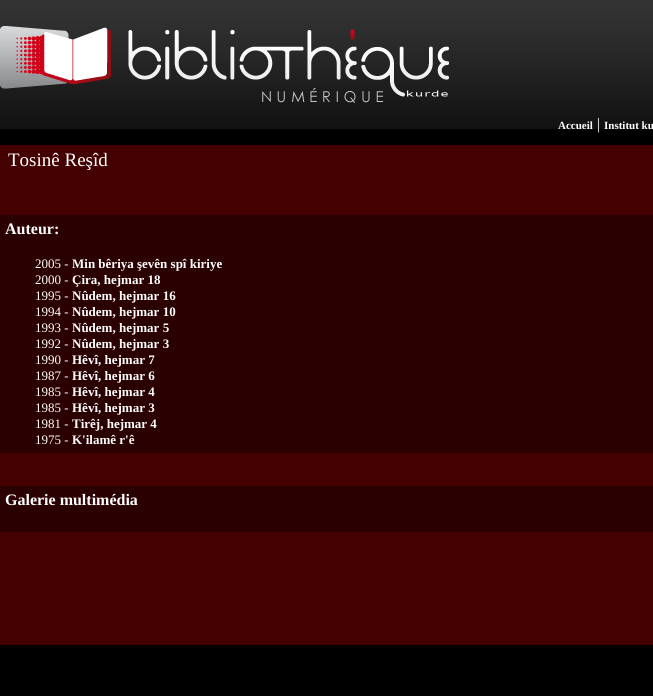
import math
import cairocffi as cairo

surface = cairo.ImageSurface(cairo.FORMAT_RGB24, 653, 696)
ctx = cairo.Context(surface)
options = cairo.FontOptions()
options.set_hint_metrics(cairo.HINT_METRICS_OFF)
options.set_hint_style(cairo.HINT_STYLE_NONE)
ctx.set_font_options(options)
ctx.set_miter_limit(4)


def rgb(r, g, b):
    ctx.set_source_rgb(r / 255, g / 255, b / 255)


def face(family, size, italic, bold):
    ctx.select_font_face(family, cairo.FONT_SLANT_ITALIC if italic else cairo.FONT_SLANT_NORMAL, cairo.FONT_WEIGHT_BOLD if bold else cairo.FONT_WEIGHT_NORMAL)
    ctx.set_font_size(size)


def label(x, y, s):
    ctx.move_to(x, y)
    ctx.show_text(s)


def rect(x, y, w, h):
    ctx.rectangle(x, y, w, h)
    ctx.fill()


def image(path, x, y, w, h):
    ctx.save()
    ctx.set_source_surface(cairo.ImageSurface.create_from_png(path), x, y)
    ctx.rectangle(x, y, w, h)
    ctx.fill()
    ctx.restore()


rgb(0, 0, 0)
ctx.paint()
image('image0.png', 0, 0, 653, 129)
image('image1.png', 0, 25, 449, 78)
face('Liberation Serif', 11, 0, 1)
rgb(255, 255, 255)
label(558, 129, 'Accueil')
face('Liberation Serif', 16, 0, 0)
label(597, 129, '|')
face('Liberation Serif', 11, 0, 1)
label(604, 129, 'Institut ku')
rgb(68, 0, 1)
rect(0, 145, 653, 500)
face('Liberation Serif', 19, 0, 0)
rgb(255, 255, 255)
label(8, 166, 'Tosinê Reşîd')
rgb(42, 0, 1)
rect(0, 215, 653, 238)
face('Liberation Serif', 16, 0, 1)
rgb(255, 255, 255)
label(5, 234, 'Auteur:')
face('Liberation Serif', 13, 0, 0)
label(35, 268, '2005 -')
face('Liberation Serif', 13, 0, 1)
label(72, 268, 'Min bêriya şevên spî kiriye')
face('Liberation Serif', 13, 0, 0)
label(35, 284, '2000 -')
face('Liberation Serif', 13, 0, 1)
label(72, 284, 'Çira, hejmar 18')
face('Liberation Serif', 13, 0, 0)
label(35, 300, '1995 -')
face('Liberation Serif', 13, 0, 1)
label(72, 300, 'Nûdem, hejmar 16')
face('Liberation Serif', 13, 0, 0)
label(35, 316, '1994 -')
face('Liberation Serif', 13, 0, 1)
label(72, 316, 'Nûdem, hejmar 10')
face('Liberation Serif', 13, 0, 0)
label(35, 332, '1993 -')
face('Liberation Serif', 13, 0, 1)
label(72, 332, 'Nûdem, hejmar 5')
face('Liberation Serif', 13, 0, 0)
label(35, 348, '1992 -')
face('Liberation Serif', 13, 0, 1)
label(72, 348, 'Nûdem, hejmar 3')
face('Liberation Serif', 13, 0, 0)
label(35, 364, '1990 -')
face('Liberation Serif', 13, 0, 1)
label(72, 364, 'Hêvî, hejmar 7')
face('Liberation Serif', 13, 0, 0)
label(35, 380, '1987 -')
face('Liberation Serif', 13, 0, 1)
label(72, 380, 'Hêvî, hejmar 6')
face('Liberation Serif', 13, 0, 0)
label(35, 396, '1985 -')
face('Liberation Serif', 13, 0, 1)
label(72, 396, 'Hêvî, hejmar 4')
face('Liberation Serif', 13, 0, 0)
label(35, 412, '1985 -')
face('Liberation Serif', 13, 0, 1)
label(72, 412, 'Hêvî, hejmar 3')
face('Liberation Serif', 13, 0, 0)
label(35, 428, '1981 -')
face('Liberation Serif', 13, 0, 1)
label(72, 428, 'Tirêj, hejmar 4')
face('Liberation Serif', 13, 0, 0)
label(35, 444, '1975 -')
face('Liberation Serif', 13, 0, 1)
label(72, 444, 'K\'ilamê r\'ê')
rgb(42, 0, 1)
rect(0, 486, 653, 46)
face('Liberation Serif', 16, 0, 1)
rgb(255, 255, 255)
label(5, 505, 'Galerie multimédia')
surface.write_to_png('render.png')
